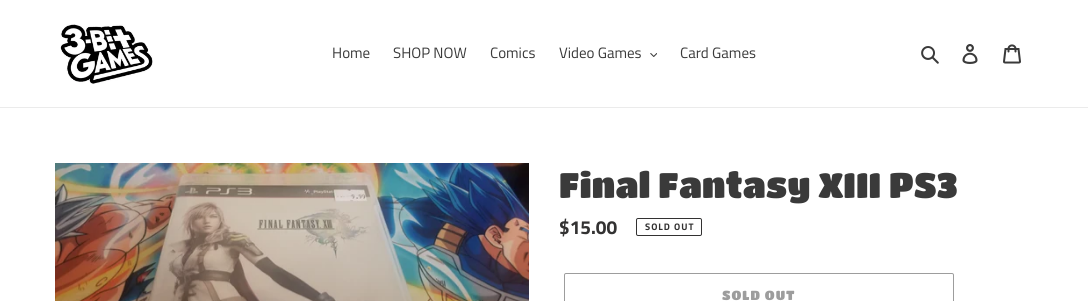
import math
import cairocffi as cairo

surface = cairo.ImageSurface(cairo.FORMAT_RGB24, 1088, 301)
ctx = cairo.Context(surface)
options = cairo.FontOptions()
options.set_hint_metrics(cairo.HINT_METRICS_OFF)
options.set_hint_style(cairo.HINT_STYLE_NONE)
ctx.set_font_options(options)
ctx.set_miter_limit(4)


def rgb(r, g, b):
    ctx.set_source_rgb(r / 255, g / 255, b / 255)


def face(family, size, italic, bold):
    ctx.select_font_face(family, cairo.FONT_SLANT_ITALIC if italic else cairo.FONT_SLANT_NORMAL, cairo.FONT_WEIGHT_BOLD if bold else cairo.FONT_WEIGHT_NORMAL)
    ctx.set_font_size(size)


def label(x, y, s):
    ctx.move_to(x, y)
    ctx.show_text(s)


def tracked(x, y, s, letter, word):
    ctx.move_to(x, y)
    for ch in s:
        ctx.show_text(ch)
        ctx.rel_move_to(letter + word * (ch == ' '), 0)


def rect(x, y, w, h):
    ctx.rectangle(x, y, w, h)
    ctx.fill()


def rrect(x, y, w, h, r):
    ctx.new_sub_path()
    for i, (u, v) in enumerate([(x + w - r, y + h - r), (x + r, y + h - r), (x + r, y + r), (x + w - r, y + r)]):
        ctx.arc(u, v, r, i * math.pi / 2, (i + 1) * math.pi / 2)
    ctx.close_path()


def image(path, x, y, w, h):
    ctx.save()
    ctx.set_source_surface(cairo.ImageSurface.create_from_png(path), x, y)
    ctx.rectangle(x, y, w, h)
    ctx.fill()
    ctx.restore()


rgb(255, 255, 255)
ctx.paint()
rgb(235, 235, 235)
rect(0, 107, 1088, 1)
image('image0.png', 60, 24, 93, 60)
face('Titillium Web', 15, 0, 0)
rgb(58, 58, 58)
label(332, 58, 'Home')
label(393, 58, 'SHOP NOW')
label(490, 58, 'Comics')
label(559, 58, 'Video Games')
image('image1.png', 650, 53, 7, 4)
label(680, 58, 'Card Games')
image('image2.png', 921, 46, 18, 18)
image('image3.png', 962, 44, 16, 20)
image('image4.png', 1003, 44, 18, 20)
image('image5.png', 55, 163, 474, 138)
face('Titan One', 35, 0, 0)
label(559, 198, 'Final Fantasy XIII PS3')
face('Titillium Web', 19, 0, 1)
rgb(51, 50, 50)
label(559, 234, '$15.00')
rrect(636.5, 218.5, 65, 17, 1.5)
ctx.set_line_width(1)
ctx.stroke()
face('Titillium Web', 9.5, 0, 1)
tracked(645, 230, 'SOLD OUT', 1, 0)
rrect(564.5, 273.5, 389, 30, 1.5)
rgb(157, 157, 157)
ctx.stroke()
face('Titan One', 13, 0, 0)
tracked(722, 300, 'SOLD OUT', 1, 0)
surface.write_to_png('render.png')
